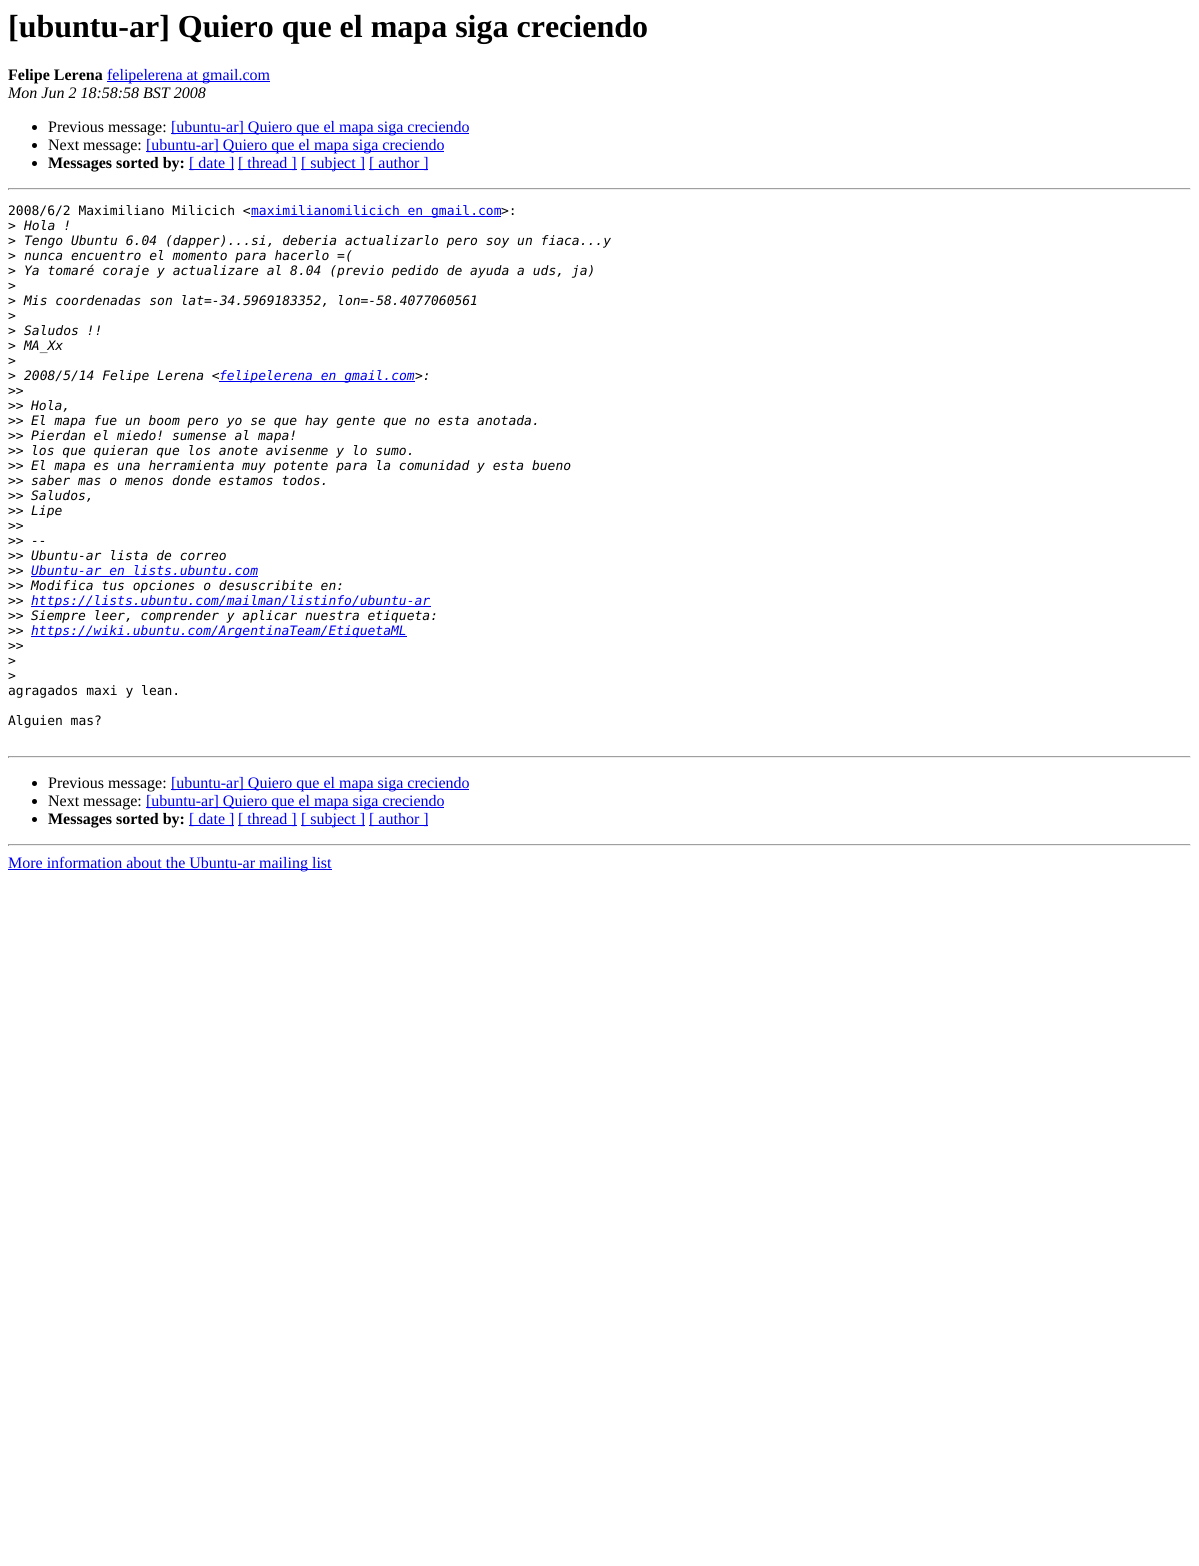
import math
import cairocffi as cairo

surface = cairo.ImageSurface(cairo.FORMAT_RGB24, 1199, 1566)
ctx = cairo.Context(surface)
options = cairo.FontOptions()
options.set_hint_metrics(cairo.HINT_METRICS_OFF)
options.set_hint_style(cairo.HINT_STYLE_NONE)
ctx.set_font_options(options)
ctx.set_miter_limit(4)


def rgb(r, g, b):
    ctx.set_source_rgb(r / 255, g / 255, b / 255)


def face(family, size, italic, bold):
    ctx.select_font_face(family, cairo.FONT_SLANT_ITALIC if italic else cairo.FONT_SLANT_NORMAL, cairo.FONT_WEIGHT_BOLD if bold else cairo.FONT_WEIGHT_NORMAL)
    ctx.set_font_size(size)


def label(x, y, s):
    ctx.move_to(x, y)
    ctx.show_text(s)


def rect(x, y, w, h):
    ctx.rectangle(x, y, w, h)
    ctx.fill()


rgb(255, 255, 255)
ctx.paint()
face('Liberation Serif', 32, 0, 1)
rgb(0, 0, 0)
label(8, 37, '[ubuntu-ar] Quiero que el mapa siga creciendo')
face('Liberation Serif', 16, 0, 1)
label(8, 80, 'Felipe Lerena')
rgb(0, 0, 238)
rect(107, 81, 163, 1)
face('Liberation Serif', 16, 0, 0)
label(107, 80, 'felipelerena at gmail.com')
face('Liberation Serif', 16, 1, 0)
rgb(0, 0, 0)
label(8, 98, 'Mon Jun 2 18:58:58 BST 2008')
ctx.new_path()
ctx.arc(34.5, 127.5, 2.5, 0, 2 * math.pi)
ctx.fill()
face('Liberation Serif', 16, 0, 0)
label(48, 132, 'Previous message:')
rgb(0, 0, 238)
rect(171, 133, 298, 1)
label(171, 132, '[ubuntu-ar] Quiero que el mapa siga creciendo')
rgb(0, 0, 0)
ctx.new_path()
ctx.arc(34.5, 145.5, 2.5, 0, 2 * math.pi)
ctx.fill()
label(48, 150, 'Next message:')
rgb(0, 0, 238)
rect(146, 151, 298, 1)
label(146, 150, '[ubuntu-ar] Quiero que el mapa siga creciendo')
rgb(0, 0, 0)
ctx.new_path()
ctx.arc(34.5, 163.5, 2.5, 0, 2 * math.pi)
ctx.fill()
face('Liberation Serif', 16, 0, 1)
label(48, 168, 'Messages sorted by:')
rgb(0, 0, 238)
rect(189, 169, 45, 1)
face('Liberation Serif', 16, 0, 0)
label(189, 168, '[ date ]')
rect(238, 169, 59, 1)
label(238, 168, '[ thread ]')
rect(301, 169, 64, 1)
label(301, 168, '[ subject ]')
rect(369, 169, 59, 1)
label(369, 168, '[ author ]')
rgb(159, 159, 159)
rect(8, 188, 1183, 1)
rgb(238, 238, 238)
rect(1190, 188, 1, 2)
rect(8, 189, 1183, 1)
rgb(159, 159, 159)
rect(8, 188, 1, 2)
face('DejaVu Sans Mono', 13, 0, 0)
rgb(0, 0, 0)
label(8, 215, '2008/6/2 Maximiliano Milicich <')
rgb(0, 0, 238)
rect(251, 216, 250, 1)
label(251, 215, 'maximilianomilicich en gmail.com')
rgb(0, 0, 0)
label(501, 215, '>:')
label(8, 230, '>')
face('DejaVu Sans Mono', 13, 1, 0)
label(24, 230, 'Hola !')
face('DejaVu Sans Mono', 13, 0, 0)
label(8, 245, '>')
face('DejaVu Sans Mono', 13, 1, 0)
label(24, 245, 'Tengo Ubuntu 6.04 (dapper)...si, deberia actualizarlo pero soy un fiaca...y')
face('DejaVu Sans Mono', 13, 0, 0)
label(8, 260, '>')
face('DejaVu Sans Mono', 13, 1, 0)
label(24, 260, 'nunca encuentro el momento para hacerlo =(')
face('DejaVu Sans Mono', 13, 0, 0)
label(8, 275, '>')
face('DejaVu Sans Mono', 13, 1, 0)
label(24, 275, 'Ya tomaré coraje y actualizare al 8.04 (previo pedido de ayuda a uds, ja)')
face('DejaVu Sans Mono', 13, 0, 0)
label(8, 290, '>')
label(8, 305, '>')
face('DejaVu Sans Mono', 13, 1, 0)
label(24, 305, 'Mis coordenadas son lat=-34.5969183352, lon=-58.4077060561')
face('DejaVu Sans Mono', 13, 0, 0)
label(8, 320, '>')
label(8, 335, '>')
face('DejaVu Sans Mono', 13, 1, 0)
label(24, 335, 'Saludos !!')
face('DejaVu Sans Mono', 13, 0, 0)
label(8, 350, '>')
face('DejaVu Sans Mono', 13, 1, 0)
label(24, 350, 'MA_Xx')
face('DejaVu Sans Mono', 13, 0, 0)
label(8, 365, '>')
label(8, 380, '>')
face('DejaVu Sans Mono', 13, 1, 0)
label(24, 380, '2008/5/14 Felipe Lerena <')
rgb(0, 0, 238)
rect(219, 381, 196, 1)
label(219, 380, 'felipelerena en gmail.com')
rgb(0, 0, 0)
label(415, 380, '>:')
face('DejaVu Sans Mono', 13, 0, 0)
label(8, 395, '>>')
label(8, 410, '>>')
face('DejaVu Sans Mono', 13, 1, 0)
label(31, 410, 'Hola,')
face('DejaVu Sans Mono', 13, 0, 0)
label(8, 425, '>>')
face('DejaVu Sans Mono', 13, 1, 0)
label(31, 425, 'El mapa fue un boom pero yo se que hay gente que no esta anotada.')
face('DejaVu Sans Mono', 13, 0, 0)
label(8, 440, '>>')
face('DejaVu Sans Mono', 13, 1, 0)
label(31, 440, 'Pierdan el miedo! sumense al mapa!')
face('DejaVu Sans Mono', 13, 0, 0)
label(8, 455, '>>')
face('DejaVu Sans Mono', 13, 1, 0)
label(31, 455, 'los que quieran que los anote avisenme y lo sumo.')
face('DejaVu Sans Mono', 13, 0, 0)
label(8, 470, '>>')
face('DejaVu Sans Mono', 13, 1, 0)
label(31, 470, 'El mapa es una herramienta muy potente para la comunidad y esta bueno')
face('DejaVu Sans Mono', 13, 0, 0)
label(8, 485, '>>')
face('DejaVu Sans Mono', 13, 1, 0)
label(31, 485, 'saber mas o menos donde estamos todos.')
face('DejaVu Sans Mono', 13, 0, 0)
label(8, 500, '>>')
face('DejaVu Sans Mono', 13, 1, 0)
label(31, 500, 'Saludos,')
face('DejaVu Sans Mono', 13, 0, 0)
label(8, 515, '>>')
face('DejaVu Sans Mono', 13, 1, 0)
label(31, 515, 'Lipe')
face('DejaVu Sans Mono', 13, 0, 0)
label(8, 530, '>>')
label(8, 545, '>>')
face('DejaVu Sans Mono', 13, 1, 0)
label(31, 545, '--')
face('DejaVu Sans Mono', 13, 0, 0)
label(8, 560, '>>')
face('DejaVu Sans Mono', 13, 1, 0)
label(31, 560, 'Ubuntu-ar lista de correo')
face('DejaVu Sans Mono', 13, 0, 0)
label(8, 575, '>>')
face('DejaVu Sans Mono', 13, 1, 0)
rgb(0, 0, 238)
label(31, 575, 'Ubuntu-ar en lists.ubuntu.com')
rect(31, 576, 227, 1)
face('DejaVu Sans Mono', 13, 0, 0)
rgb(0, 0, 0)
label(8, 590, '>>')
face('DejaVu Sans Mono', 13, 1, 0)
label(31, 590, 'Modifica tus opciones o desuscribite en:')
face('DejaVu Sans Mono', 13, 0, 0)
label(8, 605, '>>')
rgb(0, 0, 238)
rect(31, 606, 400, 1)
face('DejaVu Sans Mono', 13, 1, 0)
label(31, 605, 'https://lists.ubuntu.com/mailman/listinfo/ubuntu-ar')
face('DejaVu Sans Mono', 13, 0, 0)
rgb(0, 0, 0)
label(8, 620, '>>')
face('DejaVu Sans Mono', 13, 1, 0)
label(31, 620, 'Siempre leer, comprender y aplicar nuestra etiqueta:')
face('DejaVu Sans Mono', 13, 0, 0)
label(8, 635, '>>')
rgb(0, 0, 238)
rect(31, 636, 376, 1)
face('DejaVu Sans Mono', 13, 1, 0)
label(31, 635, 'https://wiki.ubuntu.com/ArgentinaTeam/EtiquetaML')
face('DejaVu Sans Mono', 13, 0, 0)
rgb(0, 0, 0)
label(8, 650, '>>')
label(8, 665, '>')
label(8, 680, '>')
label(8, 695, 'agragados maxi y lean.')
label(8, 725, 'Alguien mas?')
rgb(159, 159, 159)
rect(8, 756, 1183, 1)
rgb(238, 238, 238)
rect(1190, 756, 1, 2)
rect(8, 757, 1183, 1)
rgb(159, 159, 159)
rect(8, 756, 1, 2)
rgb(0, 0, 0)
ctx.new_path()
ctx.arc(34.5, 783.5, 2.5, 0, 2 * math.pi)
ctx.fill()
face('Liberation Serif', 16, 0, 0)
label(48, 788, 'Previous message:')
rgb(0, 0, 238)
rect(171, 789, 298, 1)
label(171, 788, '[ubuntu-ar] Quiero que el mapa siga creciendo')
rgb(0, 0, 0)
ctx.new_path()
ctx.arc(34.5, 801.5, 2.5, 0, 2 * math.pi)
ctx.fill()
label(48, 806, 'Next message:')
rgb(0, 0, 238)
rect(146, 807, 298, 1)
label(146, 806, '[ubuntu-ar] Quiero que el mapa siga creciendo')
rgb(0, 0, 0)
ctx.new_path()
ctx.arc(34.5, 819.5, 2.5, 0, 2 * math.pi)
ctx.fill()
face('Liberation Serif', 16, 0, 1)
label(48, 824, 'Messages sorted by:')
rgb(0, 0, 238)
rect(189, 825, 45, 1)
face('Liberation Serif', 16, 0, 0)
label(189, 824, '[ date ]')
rect(238, 825, 59, 1)
label(238, 824, '[ thread ]')
rect(301, 825, 64, 1)
label(301, 824, '[ subject ]')
rect(369, 825, 59, 1)
label(369, 824, '[ author ]')
rgb(159, 159, 159)
rect(8, 844, 1183, 1)
rgb(238, 238, 238)
rect(1190, 844, 1, 2)
rect(8, 845, 1183, 1)
rgb(159, 159, 159)
rect(8, 844, 1, 2)
rgb(0, 0, 238)
rect(8, 869, 324, 1)
label(8, 868, 'More information about the Ubuntu-ar mailing list')
surface.write_to_png('render.png')
